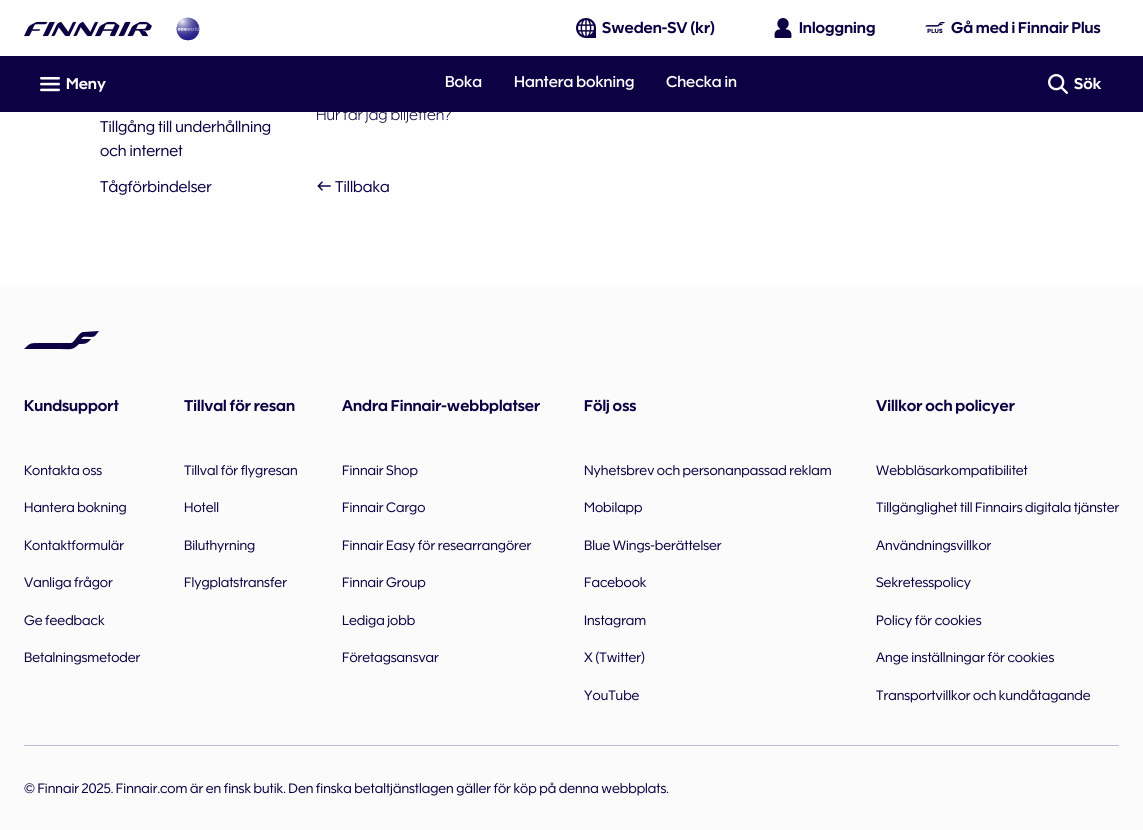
import math
import cairocffi as cairo

surface = cairo.ImageSurface(cairo.FORMAT_RGB24, 1143, 830)
ctx = cairo.Context(surface)
options = cairo.FontOptions()
options.set_hint_metrics(cairo.HINT_METRICS_OFF)
options.set_hint_style(cairo.HINT_STYLE_NONE)
ctx.set_font_options(options)
ctx.set_miter_limit(4)


def rgb(r, g, b):
    ctx.set_source_rgb(r / 255, g / 255, b / 255)


def face(family, size, italic, bold):
    ctx.select_font_face(family, cairo.FONT_SLANT_ITALIC if italic else cairo.FONT_SLANT_NORMAL, cairo.FONT_WEIGHT_BOLD if bold else cairo.FONT_WEIGHT_NORMAL)
    ctx.set_font_size(size)


def label(x, y, s):
    ctx.move_to(x, y)
    ctx.show_text(s)


def rect(x, y, w, h):
    ctx.rectangle(x, y, w, h)
    ctx.fill()


def image(path, x, y, w, h):
    ctx.save()
    ctx.set_source_surface(cairo.ImageSurface.create_from_png(path), x, y)
    ctx.rectangle(x, y, w, h)
    ctx.fill()
    ctx.restore()


rgb(255, 255, 255)
ctx.paint()
image('image0.png', 24, 21, 128, 16)
image('image1.png', 176, 17, 24, 24)
image('image2.png', 576, 18, 20, 20)
face('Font', 16, 0, 1)
rgb(12, 2, 67)
label(602, 33, 'Sweden-SV (kr)')
image('image3.png', 774, 18, 18, 20)
label(799, 33, 'Inloggning')
image('image4.png', 925, 22, 20, 11)
label(951, 33, 'Gå med i Finnair Plus')
rect(0, 56, 1143, 56)
image('image5.png', 40, 77, 20, 15)
rgb(255, 255, 255)
label(66, 89, 'Meny')
face('Font Medium', 16, 0, 0)
label(445, 87, 'Boka')
label(514, 87, 'Hantera bokning')
label(666, 87, 'Checka in')
image('image6.png', 1048, 74, 20, 20)
face('Font', 16, 0, 1)
label(1074, 89, 'Sök')
face('Font', 16, 0, 0)
rgb(12, 2, 67)
label(100, 132, 'Tillgång till underhållning')
label(100, 156, 'och internet')
label(100, 192, 'Tågförbindelser')
face('Font Light', 16, 0, 0)
label(316, 120, 'Hur får jag biljetten?')
image('image7.png', 317, 181, 14, 10)
face('Font', 16, 0, 0)
label(335, 192, 'Tillbaka')
rgb(251, 251, 251)
rect(0, 287, 1143, 543)
rgb(187, 188, 212)
rect(24, 745, 1095, 1)
rgb(12, 2, 67)
ctx.new_path()
ctx.move_to(39, 349)
ctx.line_to(24, 349)
ctx.curve_to(30, 343, 30, 343, 40, 343)
ctx.line_to(71, 343)
ctx.curve_to(75, 342, 78, 333, 83, 332)
ctx.line_to(99, 331)
ctx.line_to(95, 336)
ctx.curve_to(92, 338, 86, 336, 83, 337)
ctx.line_to(81, 339)
ctx.line_to(91, 339)
ctx.curve_to(87, 344, 85, 344, 79, 344)
ctx.curve_to(72, 351, 70, 349, 60, 349)
ctx.line_to(39, 349)
ctx.fill()
face('Font', 16, 0, 1)
label(24, 411, 'Kundsupport')
face('Font', 14, 0, 0)
label(24, 475, 'Kontakta oss')
label(24, 512, 'Hantera bokning')
label(24, 550, 'Kontaktformulär')
label(24, 587, 'Vanliga frågor')
label(24, 625, 'Ge feedback')
label(24, 662, 'Betalningsmetoder')
face('Font', 16, 0, 1)
label(184, 411, 'Tillval för resan')
face('Font', 14, 0, 0)
label(184, 475, 'Tillval för flygresan')
label(184, 512, 'Hotell')
label(184, 550, 'Biluthyrning')
label(184, 587, 'Flygplatstransfer')
face('Font', 16, 0, 1)
label(342, 411, 'Andra Finnair-webbplatser')
face('Font', 14, 0, 0)
label(342, 475, 'Finnair Shop')
label(342, 512, 'Finnair Cargo')
label(342, 550, 'Finnair Easy för researrangörer')
label(342, 587, 'Finnair Group')
label(342, 625, 'Lediga jobb')
label(342, 662, 'Företagsansvar')
face('Font', 16, 0, 1)
label(584, 411, 'Följ oss')
face('Font', 14, 0, 0)
label(584, 475, 'Nyhetsbrev och personanpassad reklam')
label(584, 512, 'Mobilapp')
label(584, 550, 'Blue Wings-berättelser')
label(584, 587, 'Facebook')
label(584, 625, 'Instagram')
label(584, 662, 'X (Twitter)')
label(584, 700, 'YouTube')
face('Font', 16, 0, 1)
label(876, 411, 'Villkor och policyer')
face('Font', 14, 0, 0)
label(876, 475, 'Webbläsarkompatibilitet')
label(876, 512, 'Tillgänglighet till Finnairs digitala tjänster')
label(876, 550, 'Användningsvillkor')
label(876, 587, 'Sekretesspolicy')
label(876, 625, 'Policy för cookies')
label(876, 662, 'Ange inställningar för cookies')
label(876, 700, 'Transportvillkor och kundåtagande')
label(24, 793, '© Finnair 2025. Finnair.com är en finsk butik. Den finska betaltjänstlagen gäller för köp på denna webbplats.')
surface.write_to_png('render.png')
